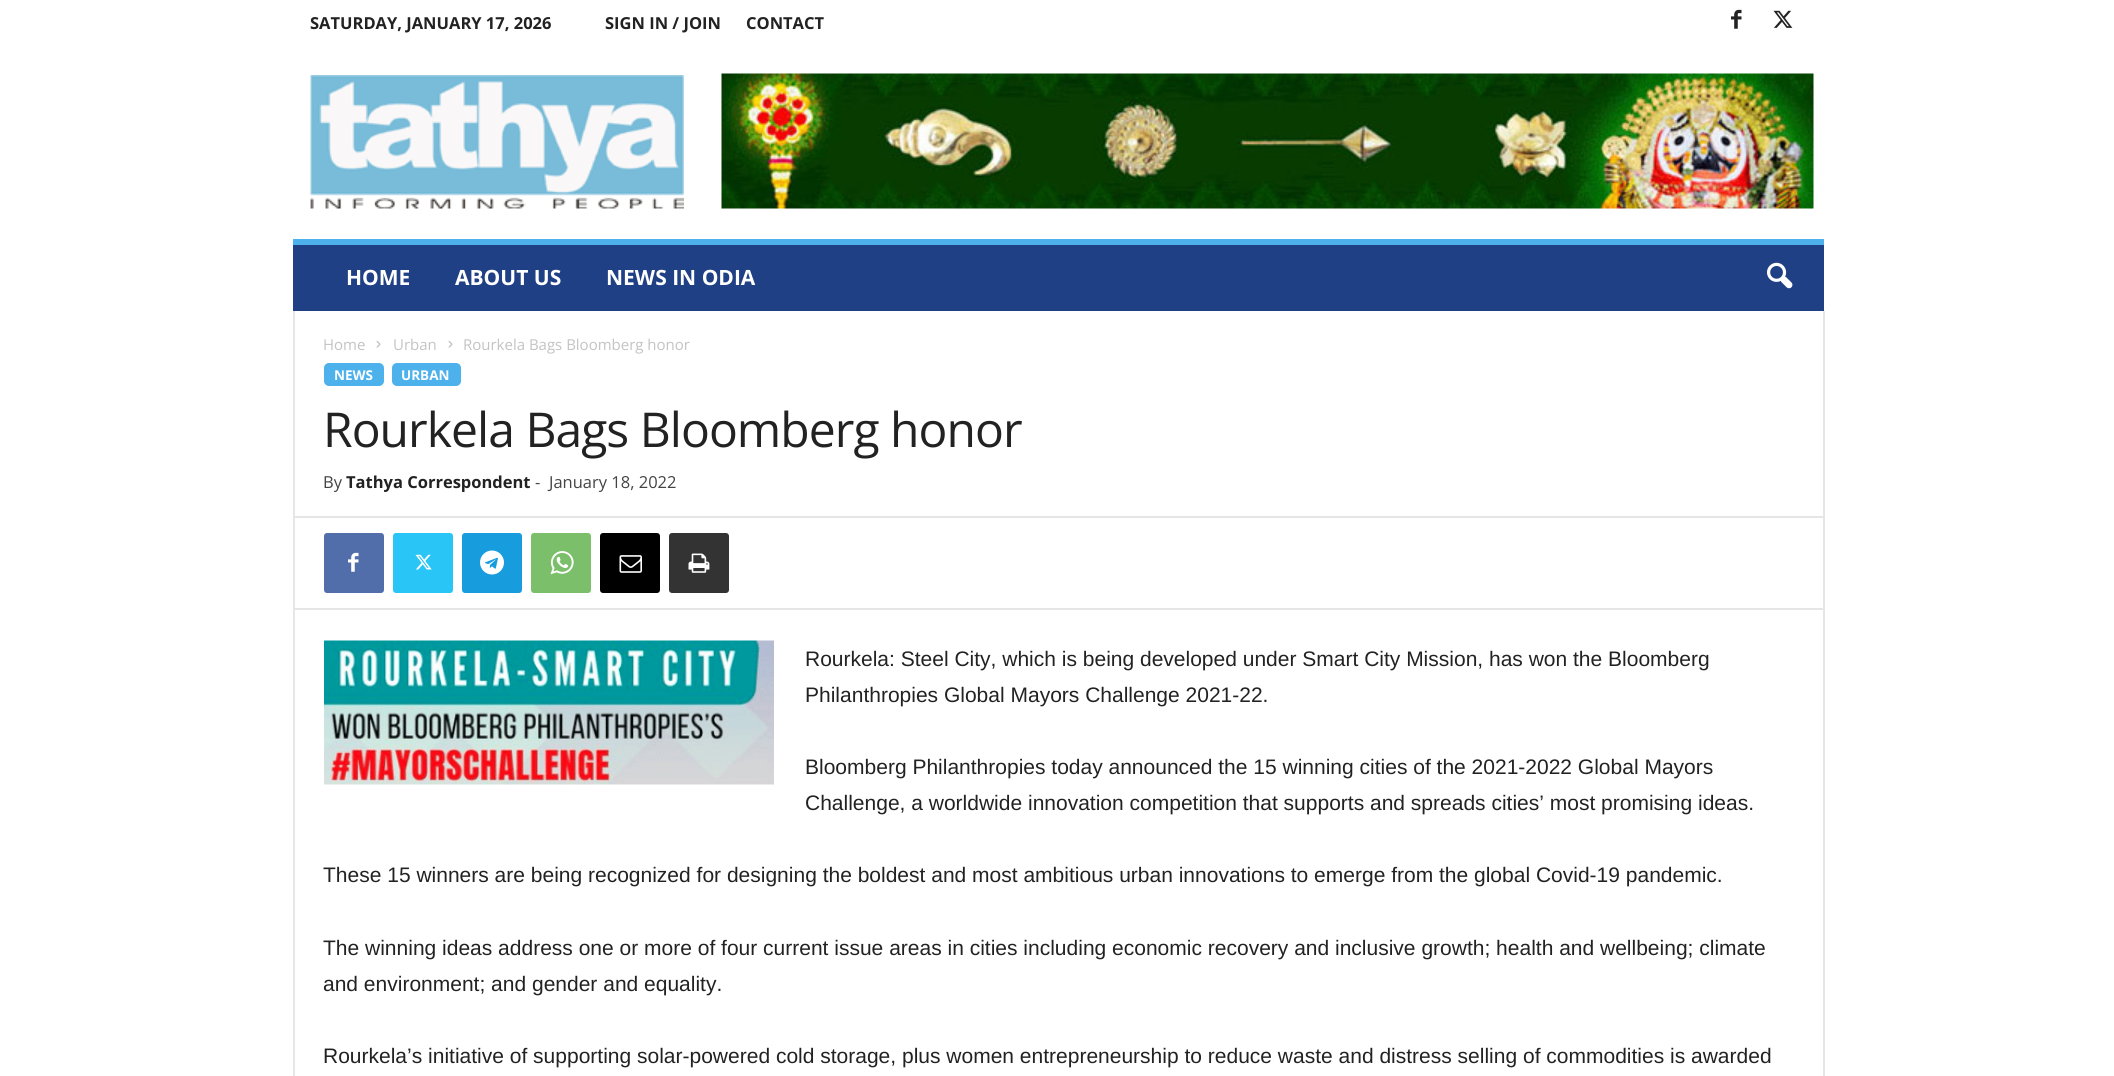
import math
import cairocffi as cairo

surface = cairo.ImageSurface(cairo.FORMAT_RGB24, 2114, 1076)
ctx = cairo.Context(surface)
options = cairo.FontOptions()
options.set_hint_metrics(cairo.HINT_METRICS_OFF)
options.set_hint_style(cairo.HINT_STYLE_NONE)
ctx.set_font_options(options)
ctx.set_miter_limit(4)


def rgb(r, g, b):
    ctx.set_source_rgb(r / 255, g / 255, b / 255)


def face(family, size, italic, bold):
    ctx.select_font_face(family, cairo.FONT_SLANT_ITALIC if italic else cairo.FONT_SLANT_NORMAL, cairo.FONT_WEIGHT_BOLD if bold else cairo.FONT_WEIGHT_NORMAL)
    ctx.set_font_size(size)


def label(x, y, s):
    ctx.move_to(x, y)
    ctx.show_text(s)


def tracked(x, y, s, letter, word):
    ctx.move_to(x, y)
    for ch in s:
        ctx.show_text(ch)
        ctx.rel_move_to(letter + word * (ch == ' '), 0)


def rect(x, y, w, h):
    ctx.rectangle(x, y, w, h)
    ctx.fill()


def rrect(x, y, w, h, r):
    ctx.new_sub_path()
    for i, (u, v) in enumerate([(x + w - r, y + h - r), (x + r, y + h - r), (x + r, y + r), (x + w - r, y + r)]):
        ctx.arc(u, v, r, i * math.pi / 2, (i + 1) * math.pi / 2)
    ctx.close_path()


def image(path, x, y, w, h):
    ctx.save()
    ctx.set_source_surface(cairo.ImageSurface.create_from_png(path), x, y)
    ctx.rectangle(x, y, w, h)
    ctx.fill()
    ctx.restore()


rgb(255, 255, 255)
ctx.paint()
face('Open Sans', 16.5, 0, 1)
rgb(34, 34, 34)
label(310, 29, 'SATURDAY, JANUARY 17, 2026')
label(605, 29, 'SIGN IN / JOIN')
label(746, 29, 'CONTACT')
image('image0.png', 1731, 9, 11, 20)
image('image1.png', 1773, 10, 20, 18)
image('image2.png', 310, 75, 374, 134)
image('image3.png', 721, 73, 1093, 136)
rgb(31, 64, 132)
rect(293, 245, 1531, 66)
rgb(77, 178, 236)
rect(293, 239, 1531, 6)
face('Open Sans', 21, 0, 1)
rgb(255, 255, 255)
label(346, 285, 'HOME')
label(455, 285, 'ABOUT US')
label(606, 285, 'NEWS IN ODIA')
image('image4.png', 1767, 262, 26, 27)
rgb(230, 230, 230)
rect(293, 311, 2, 765)
face('Open Sans', 15, 0, 0)
rgb(195, 195, 195)
label(323, 350, 'Home')
image('image5.png', 376, 340, 5, 8)
label(393, 350, 'Urban')
image('image5.png', 448, 340, 5, 8)
label(463, 350, 'Rourkela Bags Bloomberg honor')
rgb(77, 178, 236)
rrect(324, 363, 60, 23, 5)
ctx.fill()
face('Open Sans', 13.5, 0, 1)
rgb(255, 255, 255)
label(334, 380, 'NEWS')
rgb(77, 178, 236)
rrect(392, 363, 69, 23, 5)
ctx.fill()
rgb(255, 255, 255)
label(401, 380, 'URBAN')
face('Open Sans', 48, 0, 0)
rgb(34, 34, 34)
tracked(323, 447, 'Rourkela Bags Bloomberg honor', -0.95, 0)
face('Open Sans', 16.5, 0, 0)
rgb(68, 68, 68)
label(323, 488, 'By')
face('Open Sans', 16.5, 0, 1)
rgb(34, 34, 34)
label(346, 488, 'Tathya Correspondent')
face('Open Sans', 16.5, 0, 0)
rgb(68, 68, 68)
label(535, 488, '-')
label(549, 488, 'January 18, 2022')
rgb(230, 230, 230)
rect(294, 516, 1529, 2)
rgb(81, 110, 171)
rrect(324, 533, 60, 60, 3)
ctx.fill()
image('image6.png', 348, 552, 11, 20)
rgb(41, 197, 246)
rrect(393, 533, 60, 60, 3)
ctx.fill()
image('image7.png', 415, 554, 17, 16)
rgb(23, 156, 222)
rrect(462, 533, 60, 60, 3)
ctx.fill()
image('image8.png', 480, 550, 24, 25)
rgb(123, 191, 106)
rrect(531, 533, 60, 60, 3)
ctx.fill()
image('image9.png', 550, 551, 24, 24)
rgb(0, 0, 0)
rrect(600, 533, 60, 60, 3)
ctx.fill()
image('image10.png', 619, 555, 23, 18)
rgb(51, 51, 51)
rrect(669, 533, 60, 60, 3)
ctx.fill()
image('image11.png', 688, 553, 22, 20)
rgb(230, 230, 230)
rect(294, 608, 1529, 2)
image('image12.png', 324, 640, 450, 145)
face('Liberation Sans', 21, 0, 0)
rgb(34, 34, 34)
label(805, 666, 'Rourkela: Steel City, which is being developed under Smart City Mission, has won the Bloomberg')
label(805, 702, 'Philanthropies Global Mayors Challenge 2021-22.')
label(805, 774, 'Bloomberg Philanthropies today announced the 15 winning cities of the 2021-2022 Global Mayors')
label(805, 810, 'Challenge, a worldwide innovation competition that supports and spreads cities’ most promising ideas.')
label(323, 882, 'These 15 winners are being recognized for designing the boldest and most ambitious urban innovations to emerge from the global Covid-19 pandemic.')
label(323, 955, 'The winning ideas address one or more of four current issue areas in cities including economic recovery and inclusive growth; health and wellbeing; climate')
label(323, 991, 'and environment; and gender and equality.')
label(323, 1063, 'Rourkela’s initiative of supporting solar-powered cold storage, plus women entrepreneurship to reduce waste and distress selling of commodities is awarded')
rgb(230, 230, 230)
rect(1823, 311, 2, 765)
surface.write_to_png('render.png')
